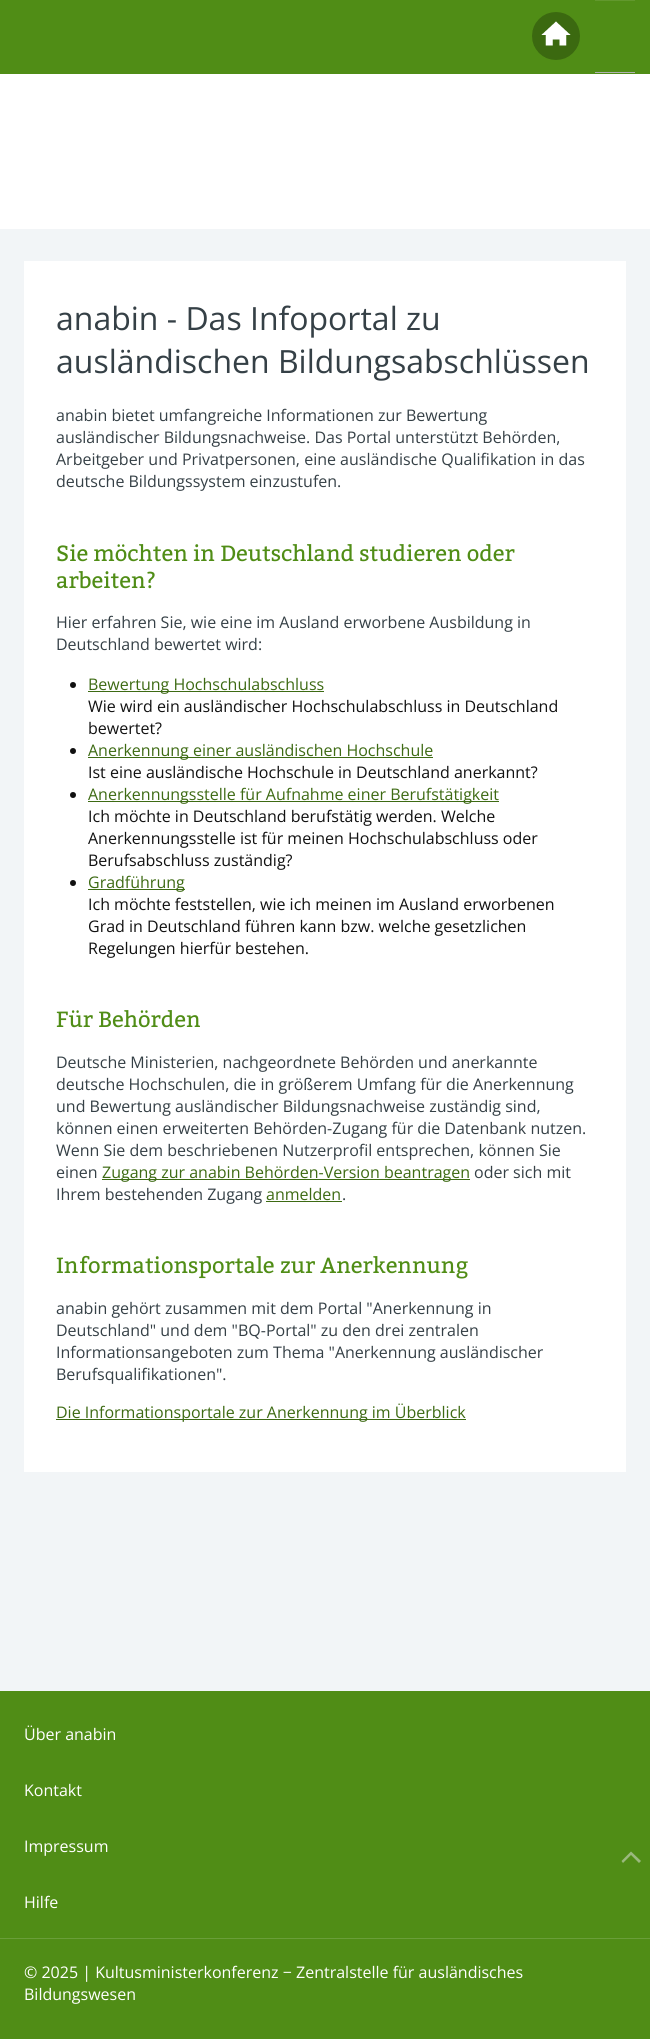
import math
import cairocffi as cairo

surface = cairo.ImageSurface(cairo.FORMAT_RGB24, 650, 2039)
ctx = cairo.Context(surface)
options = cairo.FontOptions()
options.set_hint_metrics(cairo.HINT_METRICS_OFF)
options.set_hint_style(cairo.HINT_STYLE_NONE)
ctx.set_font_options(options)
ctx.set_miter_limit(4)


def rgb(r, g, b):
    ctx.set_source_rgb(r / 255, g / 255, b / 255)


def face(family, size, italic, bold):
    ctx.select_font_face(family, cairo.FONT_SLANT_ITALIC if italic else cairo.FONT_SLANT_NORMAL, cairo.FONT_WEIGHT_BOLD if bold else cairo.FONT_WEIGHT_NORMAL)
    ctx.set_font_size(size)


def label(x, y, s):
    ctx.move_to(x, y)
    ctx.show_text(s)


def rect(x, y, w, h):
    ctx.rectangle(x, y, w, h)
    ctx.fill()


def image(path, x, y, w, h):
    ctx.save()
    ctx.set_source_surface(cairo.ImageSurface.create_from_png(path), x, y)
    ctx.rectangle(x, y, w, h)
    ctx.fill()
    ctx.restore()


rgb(242, 245, 247)
ctx.paint()
rgb(80, 141, 22)
rect(0, 0, 650, 74)
image('image0.png', 532, 12, 48, 48)
rgb(176, 177, 178)
rect(595, 72, 40, 1)
rgb(98, 152, 45)
rect(595, 0, 40, 1)
rgb(255, 255, 255)
rect(0, 74, 650, 155)
rect(24, 261, 602, 1211)
face('Open Sans', 32, 0, 0)
rgb(53, 64, 70)
label(56, 330, 'anabin - Das Infoportal zu')
label(56, 373, 'ausländischen Bildungsabschlüssen')
face('Open Sans', 16, 0, 0)
label(56, 421, 'anabin bietet umfangreiche Informationen zur Bewertung')
label(56, 443, 'ausländischer Bildungsnachweise. Das Portal unterstützt Behörden,')
label(56, 465, 'Arbeitgeber und Privatpersonen, eine ausländische Qualifikation in das')
label(56, 487, 'deutsche Bildungssystem einzustufen.')
face('Bitter', 22, 0, 0)
rgb(80, 141, 22)
label(56, 561, 'Sie möchten in Deutschland studieren oder')
label(56, 588, 'arbeiten?')
face('Open Sans', 16, 0, 0)
rgb(53, 64, 70)
label(56, 628, 'Hier erfahren Sie, wie eine im Ausland erworbene Ausbildung in')
label(56, 650, 'Deutschland bewertet wird:')
rgb(17, 17, 17)
ctx.new_path()
ctx.arc(73, 685, 3, 0, 2 * math.pi)
ctx.fill()
rgb(61, 106, 19)
rect(88, 691, 236, 1)
label(88, 690, 'Bewertung Hochschulabschluss')
rgb(17, 17, 17)
label(88, 712, 'Wie wird ein ausländischer Hochschulabschluss in Deutschland')
label(88, 734, 'bewertet?')
ctx.new_path()
ctx.arc(73, 751, 3, 0, 2 * math.pi)
ctx.fill()
rgb(61, 106, 19)
rect(88, 757, 345, 1)
label(88, 756, 'Anerkennung einer ausländischen Hochschule')
rgb(17, 17, 17)
label(88, 778, 'Ist eine ausländische Hochschule in Deutschland anerkannt?')
ctx.new_path()
ctx.arc(73, 795, 3, 0, 2 * math.pi)
ctx.fill()
rgb(61, 106, 19)
rect(88, 801, 411, 1)
label(88, 800, 'Anerkennungsstelle für Aufnahme einer Berufstätigkeit')
rgb(17, 17, 17)
label(88, 822, 'Ich möchte in Deutschland berufstätig werden. Welche')
label(88, 844, 'Anerkennungsstelle ist für meinen Hochschulabschluss oder')
label(88, 866, 'Berufsabschluss zuständig?')
ctx.new_path()
ctx.arc(73, 883, 3, 0, 2 * math.pi)
ctx.fill()
rgb(61, 106, 19)
rect(88, 889, 97, 1)
label(88, 888, 'Gradführung')
rgb(17, 17, 17)
label(88, 910, 'Ich möchte feststellen, wie ich meinen im Ausland erworbenen')
label(88, 932, 'Grad in Deutschland führen kann bzw. welche gesetzlichen')
label(88, 954, 'Regelungen hierfür bestehen.')
face('Bitter', 22, 0, 0)
rgb(80, 141, 22)
label(56, 1027, 'Für Behörden')
face('Open Sans', 16, 0, 0)
rgb(53, 64, 70)
label(56, 1068, 'Deutsche Ministerien, nachgeordnete Behörden und anerkannte')
label(56, 1090, 'deutsche Hochschulen, die in größerem Umfang für die Anerkennung')
label(56, 1112, 'und Bewertung ausländischer Bildungsnachweise zuständig sind,')
label(56, 1134, 'können einen erweiterten Behörden-Zugang für die Datenbank nutzen.')
label(56, 1156, 'Wenn Sie dem beschriebenen Nutzerprofil entsprechen, können Sie')
label(56, 1178, 'einen')
rgb(61, 106, 19)
rect(102, 1179, 368, 1)
label(102, 1178, 'Zugang zur anabin Behörden-Version beantragen')
rgb(53, 64, 70)
label(474, 1178, 'oder sich mit')
label(56, 1200, 'Ihrem bestehenden Zugang')
rgb(61, 106, 19)
label(266, 1200, 'anmelden')
rect(266, 1201, 76, 1)
rgb(53, 64, 70)
label(342, 1200, '.')
face('Bitter', 22, 0, 0)
rgb(80, 141, 22)
label(56, 1273, 'Informationsportale zur Anerkennung')
face('Open Sans', 16, 0, 0)
rgb(53, 64, 70)
label(56, 1314, 'anabin gehört zusammen mit dem Portal "Anerkennung in')
label(56, 1336, 'Deutschland" und dem "BQ-Portal" zu den drei zentralen')
label(56, 1358, 'Informationsangeboten zum Thema "Anerkennung ausländischer')
label(56, 1380, 'Berufsqualifikationen".')
rgb(61, 106, 19)
rect(56, 1419, 410, 1)
label(56, 1418, 'Die Informationsportale zur Anerkennung im Überblick')
rgb(80, 141, 22)
rect(0, 1691, 650, 348)
rgb(255, 255, 255)
label(24, 1740, 'Über anabin')
label(24, 1796, 'Kontakt')
label(24, 1852, 'Impressum')
label(24, 1908, 'Hilfe')
rgb(106, 158, 57)
rect(0, 1938, 650, 1)
rgb(255, 255, 255)
label(24, 1978, '© 2025 | Kultusministerkonferenz − Zentralstelle für ausländisches')
label(24, 2000, 'Bildungswesen')
rgb(155, 185, 126)
ctx.new_path()
ctx.move_to(631, 1851.5)
ctx.line_to(621.5, 1861)
ctx.line_to(623, 1863)
ctx.line_to(631, 1855)
ctx.line_to(639, 1863)
ctx.line_to(641, 1861)
ctx.close_path()
ctx.fill()
surface.write_to_png('render.png')
